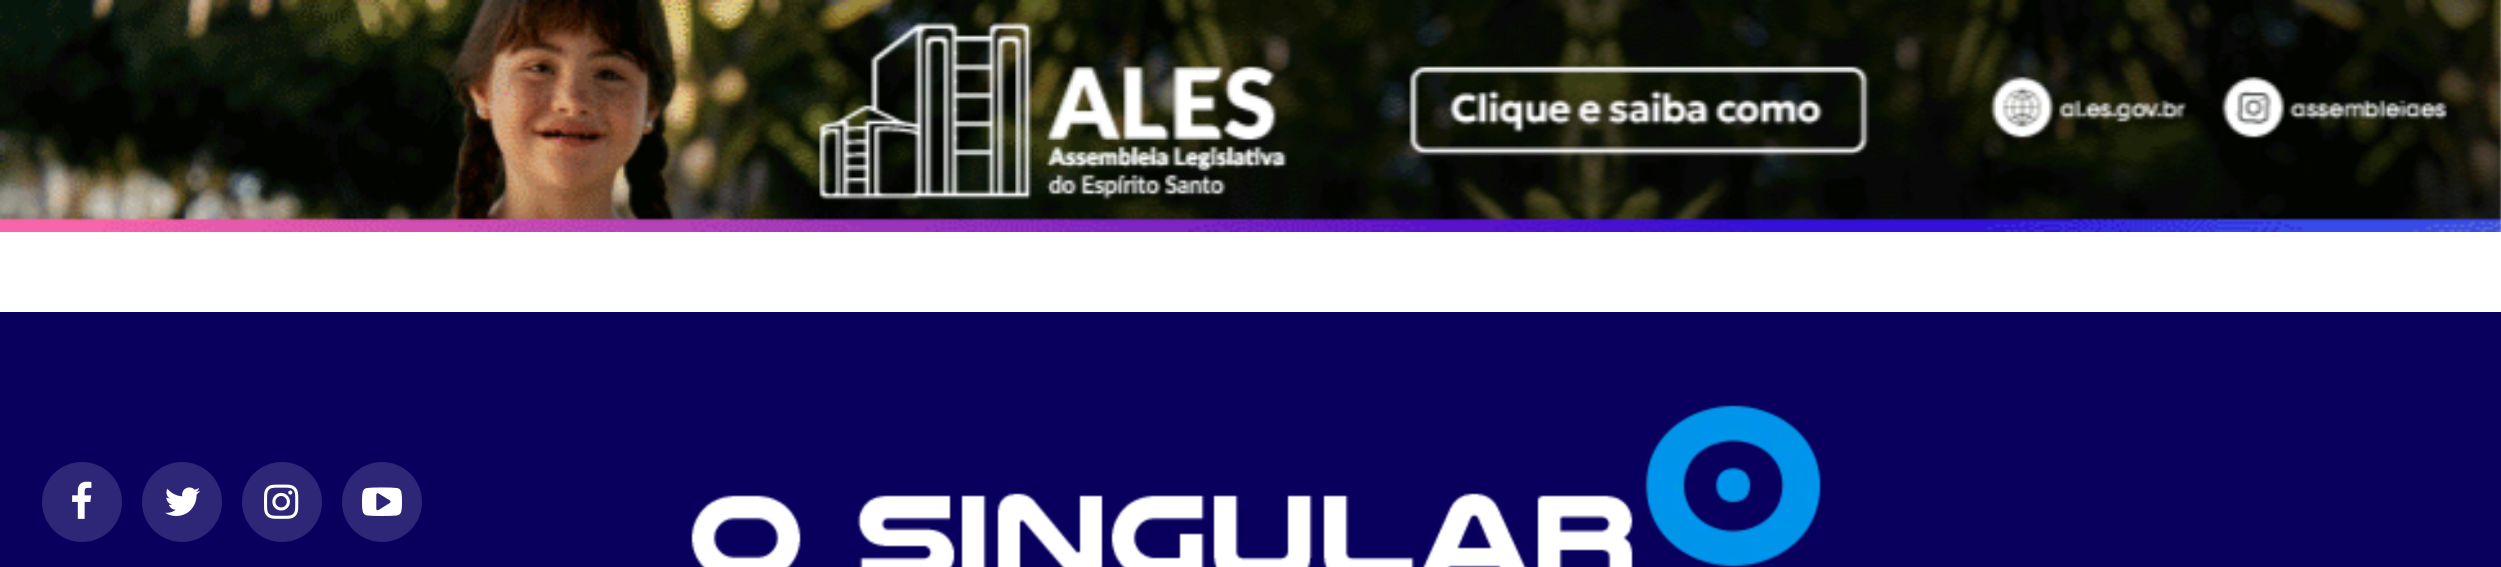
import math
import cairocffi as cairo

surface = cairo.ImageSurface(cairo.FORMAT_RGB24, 2501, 567)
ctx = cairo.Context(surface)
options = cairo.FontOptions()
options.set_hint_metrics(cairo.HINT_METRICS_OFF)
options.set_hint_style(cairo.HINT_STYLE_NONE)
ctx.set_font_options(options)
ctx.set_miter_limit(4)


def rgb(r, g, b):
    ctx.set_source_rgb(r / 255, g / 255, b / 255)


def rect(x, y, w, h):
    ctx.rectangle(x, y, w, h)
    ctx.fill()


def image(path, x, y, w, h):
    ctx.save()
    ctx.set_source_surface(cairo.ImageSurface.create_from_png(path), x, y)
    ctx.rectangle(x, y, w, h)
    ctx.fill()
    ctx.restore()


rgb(255, 255, 255)
ctx.paint()
image('image0.png', 0, 0, 2501, 232)
rgb(9, 0, 94)
rect(0, 312, 2501, 255)
rgb(46, 38, 118)
ctx.arc(82, 502, 40, 0, 2 * math.pi)
ctx.fill()
image('image1.png', 72, 481, 20, 38)
ctx.arc(182, 502, 40, 0, 2 * math.pi)
ctx.fill()
image('image2.png', 165, 487, 35, 29)
ctx.arc(282, 502, 40, 0, 2 * math.pi)
ctx.fill()
image('image3.png', 264, 484, 35, 35)
ctx.arc(382, 502, 40, 0, 2 * math.pi)
ctx.fill()
image('image4.png', 362, 487, 40, 29)
image('image5.png', 691, 405, 1130, 162)
surface.write_to_png('render.png')
